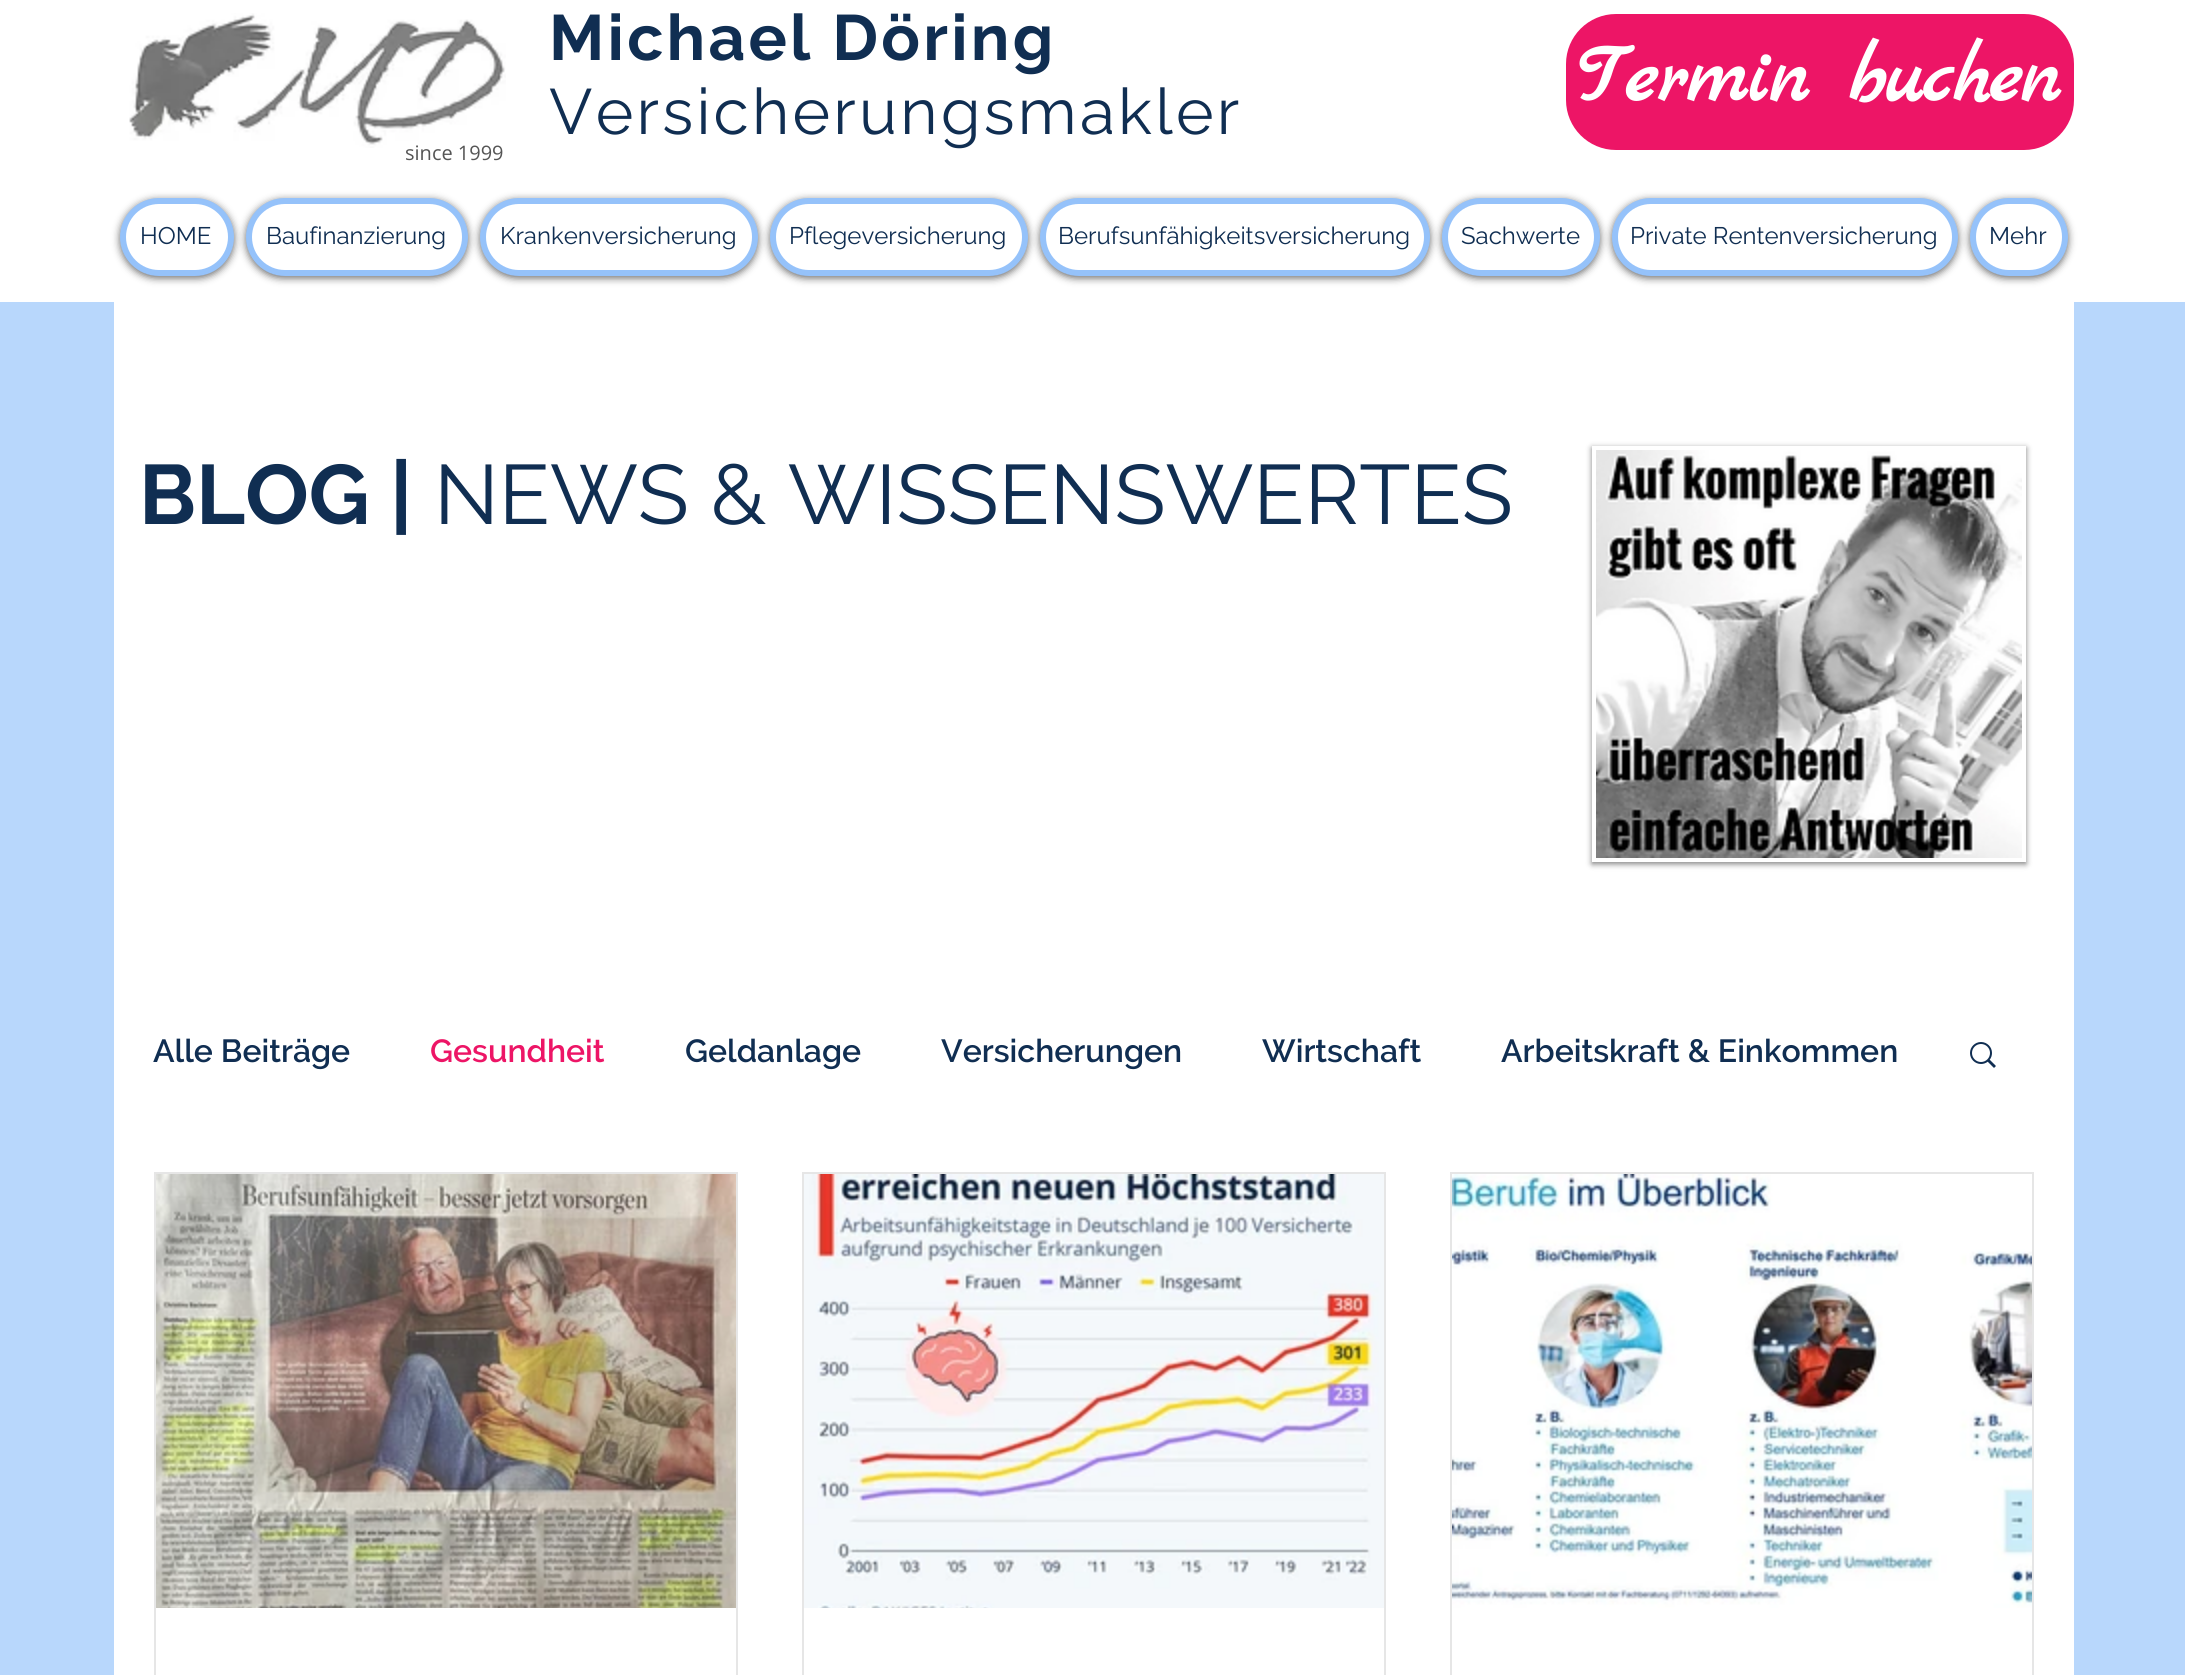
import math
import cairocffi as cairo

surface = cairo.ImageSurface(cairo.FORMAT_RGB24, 2185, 1675)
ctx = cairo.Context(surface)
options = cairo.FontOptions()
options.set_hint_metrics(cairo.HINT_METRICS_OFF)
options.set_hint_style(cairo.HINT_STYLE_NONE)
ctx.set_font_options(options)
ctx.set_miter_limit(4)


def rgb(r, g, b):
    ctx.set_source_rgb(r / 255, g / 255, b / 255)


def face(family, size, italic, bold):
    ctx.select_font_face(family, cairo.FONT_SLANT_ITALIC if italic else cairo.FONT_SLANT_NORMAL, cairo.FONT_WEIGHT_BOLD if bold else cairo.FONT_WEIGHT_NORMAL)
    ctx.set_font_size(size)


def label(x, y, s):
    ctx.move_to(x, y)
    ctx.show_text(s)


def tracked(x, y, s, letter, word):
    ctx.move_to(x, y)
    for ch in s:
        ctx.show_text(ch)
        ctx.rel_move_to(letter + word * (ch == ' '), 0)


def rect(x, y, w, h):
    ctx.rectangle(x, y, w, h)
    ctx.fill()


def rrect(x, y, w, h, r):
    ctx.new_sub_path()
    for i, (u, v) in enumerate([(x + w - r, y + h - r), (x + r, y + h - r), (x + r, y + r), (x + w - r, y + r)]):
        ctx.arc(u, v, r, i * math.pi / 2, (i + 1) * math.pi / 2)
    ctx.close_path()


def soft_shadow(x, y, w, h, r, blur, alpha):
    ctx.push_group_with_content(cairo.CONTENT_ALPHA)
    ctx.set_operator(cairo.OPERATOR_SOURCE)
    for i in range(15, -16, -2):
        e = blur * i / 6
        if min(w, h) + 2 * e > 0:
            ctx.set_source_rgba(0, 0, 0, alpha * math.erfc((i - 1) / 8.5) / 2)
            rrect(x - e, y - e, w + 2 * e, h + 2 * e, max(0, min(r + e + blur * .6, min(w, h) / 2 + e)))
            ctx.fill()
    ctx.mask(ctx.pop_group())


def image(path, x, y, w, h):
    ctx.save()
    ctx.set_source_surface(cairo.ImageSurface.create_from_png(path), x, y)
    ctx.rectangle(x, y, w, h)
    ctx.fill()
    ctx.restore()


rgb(184, 215, 252)
ctx.paint()
rgb(255, 255, 255)
rect(0, 0, 2185, 302)
image('image0.png', 129, 13, 377, 135)
face('Raleway', 64, 0, 1)
rgb(16, 46, 82)
tracked(549, 60, 'Michael Döring', 3.25, 0)
face('Raleway', 64, 0, 0)
tracked(549, 134, 'Versicherungsmakler', 3.25, 0)
rgb(237, 21, 102)
rrect(1566, 14, 508, 136, 50)
ctx.fill()
face('Marck Script', 84, 0, 1)
rgb(255, 255, 255)
label(1577, 101, 'Termin buchen')
face('Open Sans', 20, 0, 0)
rgb(85, 85, 85)
label(405, 160, 'since 1999')
rgb(0, 0, 0)
soft_shadow(120, 200, 114, 78, 39, 4, 0.6)
rgb(255, 255, 255)
rrect(123, 201, 108, 72, 36)
ctx.fill_preserve()
rgb(149, 194, 250)
ctx.set_line_width(6)
ctx.stroke()
face('Raleway', 24, 0, 0)
rgb(16, 46, 82)
label(140, 244, 'HOME')
rgb(0, 0, 0)
soft_shadow(246, 200, 222, 78, 39, 4, 0.6)
rgb(255, 255, 255)
rrect(249, 201, 216, 72, 36)
ctx.fill_preserve()
rgb(149, 194, 250)
ctx.stroke()
rgb(16, 46, 82)
label(266, 244, 'Baufinanzierung')
rgb(0, 0, 0)
soft_shadow(480, 200, 278, 78, 39, 4, 0.6)
rgb(255, 255, 255)
rrect(483, 201, 272, 72, 36)
ctx.fill_preserve()
rgb(149, 194, 250)
ctx.stroke()
rgb(16, 46, 82)
label(500, 244, 'Krankenversicherung')
rgb(0, 0, 0)
soft_shadow(770, 200, 258, 78, 39, 4, 0.6)
rgb(255, 255, 255)
rrect(773, 201, 252, 72, 36)
ctx.fill_preserve()
rgb(149, 194, 250)
ctx.stroke()
rgb(16, 46, 82)
label(789, 244, 'Pflegeversicherung')
rgb(0, 0, 0)
soft_shadow(1040, 200, 390, 78, 39, 4, 0.6)
rgb(255, 255, 255)
rrect(1043, 201, 384, 72, 36)
ctx.fill_preserve()
rgb(149, 194, 250)
ctx.stroke()
rgb(16, 46, 82)
label(1058, 244, 'Berufsunfähigkeitsversicherung')
rgb(0, 0, 0)
soft_shadow(1442, 200, 158, 78, 39, 4, 0.6)
rgb(255, 255, 255)
rrect(1445, 201, 152, 72, 36)
ctx.fill_preserve()
rgb(149, 194, 250)
ctx.stroke()
rgb(16, 46, 82)
label(1461, 244, 'Sachwerte')
rgb(0, 0, 0)
soft_shadow(1612, 200, 346, 78, 39, 4, 0.6)
rgb(255, 255, 255)
rrect(1615, 201, 340, 72, 36)
ctx.fill_preserve()
rgb(149, 194, 250)
ctx.stroke()
rgb(16, 46, 82)
label(1630, 244, 'Private Rentenversicherung')
rgb(0, 0, 0)
soft_shadow(1970, 200, 98, 78, 39, 4, 0.6)
rgb(255, 255, 255)
rrect(1973, 201, 92, 72, 36)
ctx.fill_preserve()
rgb(149, 194, 250)
ctx.stroke()
rgb(16, 46, 82)
label(1989, 244, 'Mehr')
rgb(255, 255, 255)
rect(114, 302, 1960, 1373)
face('Raleway', 84, 0, 1)
rgb(16, 46, 82)
label(139, 524, 'BLOG |')
face('Raleway', 84, 0, 0)
label(434, 524, 'NEWS & WISSENSWERTES')
ctx.save()
ctx.set_fill_rule(cairo.FILL_RULE_EVEN_ODD)
ctx.new_path()
ctx.move_to(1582, 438)
ctx.line_to(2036, 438)
ctx.line_to(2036, 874)
ctx.line_to(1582, 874)
ctx.close_path()
ctx.move_to(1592, 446)
ctx.line_to(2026, 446)
ctx.line_to(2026, 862)
ctx.line_to(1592, 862)
ctx.close_path()
ctx.clip()
rgb(0, 0, 0)
soft_shadow(1592, 448, 434, 416, 0, 3, 0.5)
ctx.restore()
image('image1.png', 1596, 450, 426, 408)
face('Raleway SemiBold', 32, 0, 0)
label(153, 1062, 'Alle Beiträge')
rgb(237, 21, 102)
label(430, 1062, 'Gesundheit')
rgb(16, 46, 82)
label(685, 1062, 'Geldanlage')
label(941, 1062, 'Versicherungen')
label(1262, 1062, 'Wirtschaft')
label(1501, 1062, 'Arbeitskraft & Einkommen')
image('image2.png', 1970, 1042, 26, 26)
ctx.rectangle(155, 1173, 582, 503)
rgb(230, 230, 230)
ctx.set_line_width(2)
ctx.stroke()
image('image3.png', 156, 1174, 580, 434)
ctx.rectangle(803, 1173, 582, 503)
ctx.stroke()
image('image4.png', 804, 1174, 580, 434)
ctx.rectangle(1451, 1173, 582, 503)
ctx.stroke()
image('image5.png', 1452, 1174, 580, 434)
surface.write_to_png('render.png')
